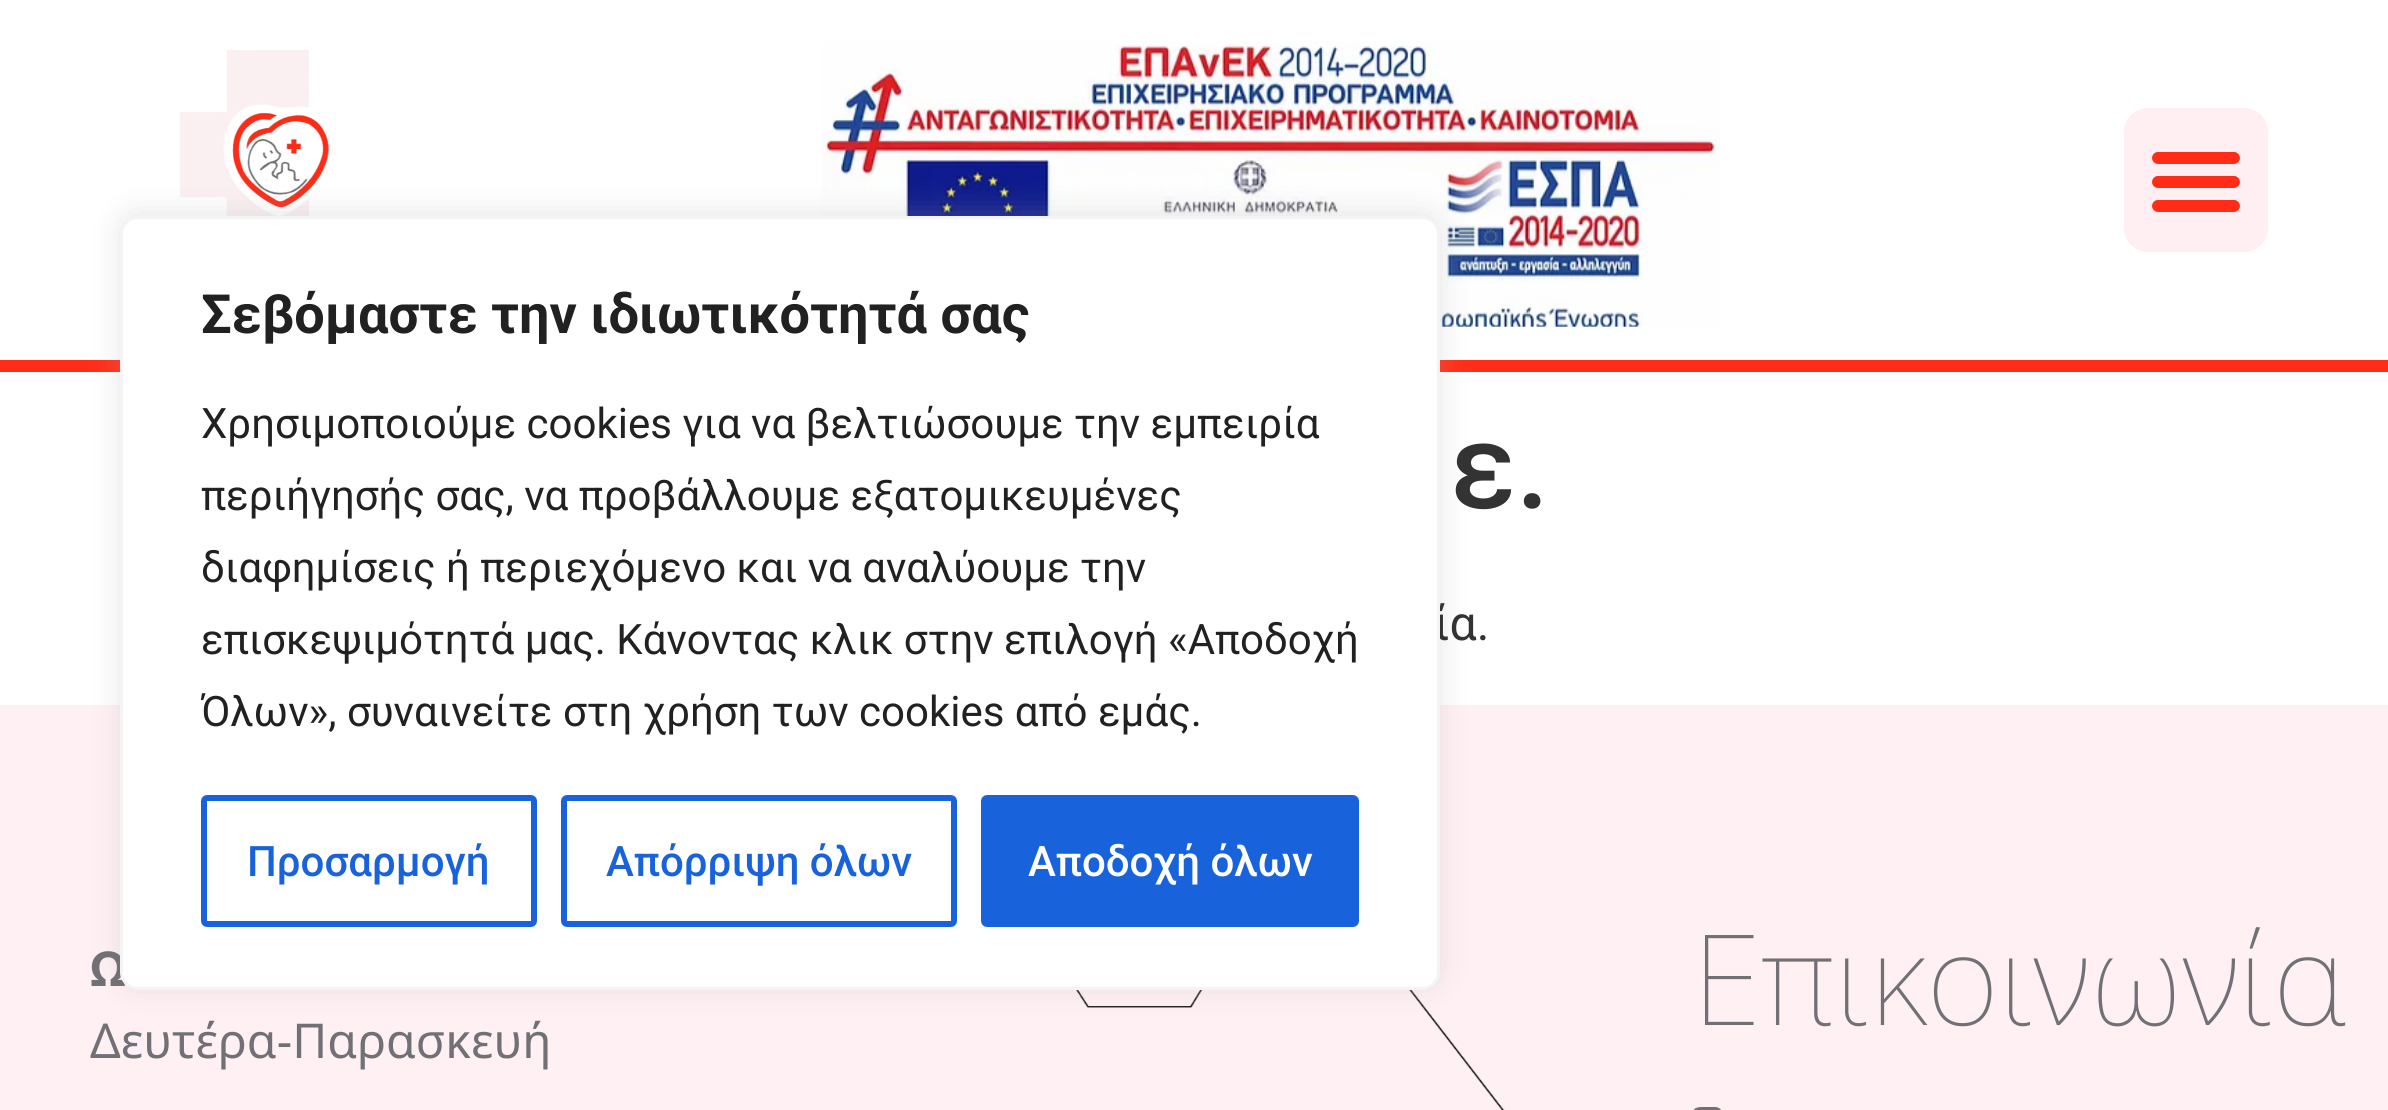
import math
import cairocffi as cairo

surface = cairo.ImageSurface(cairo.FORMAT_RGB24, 2388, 1110)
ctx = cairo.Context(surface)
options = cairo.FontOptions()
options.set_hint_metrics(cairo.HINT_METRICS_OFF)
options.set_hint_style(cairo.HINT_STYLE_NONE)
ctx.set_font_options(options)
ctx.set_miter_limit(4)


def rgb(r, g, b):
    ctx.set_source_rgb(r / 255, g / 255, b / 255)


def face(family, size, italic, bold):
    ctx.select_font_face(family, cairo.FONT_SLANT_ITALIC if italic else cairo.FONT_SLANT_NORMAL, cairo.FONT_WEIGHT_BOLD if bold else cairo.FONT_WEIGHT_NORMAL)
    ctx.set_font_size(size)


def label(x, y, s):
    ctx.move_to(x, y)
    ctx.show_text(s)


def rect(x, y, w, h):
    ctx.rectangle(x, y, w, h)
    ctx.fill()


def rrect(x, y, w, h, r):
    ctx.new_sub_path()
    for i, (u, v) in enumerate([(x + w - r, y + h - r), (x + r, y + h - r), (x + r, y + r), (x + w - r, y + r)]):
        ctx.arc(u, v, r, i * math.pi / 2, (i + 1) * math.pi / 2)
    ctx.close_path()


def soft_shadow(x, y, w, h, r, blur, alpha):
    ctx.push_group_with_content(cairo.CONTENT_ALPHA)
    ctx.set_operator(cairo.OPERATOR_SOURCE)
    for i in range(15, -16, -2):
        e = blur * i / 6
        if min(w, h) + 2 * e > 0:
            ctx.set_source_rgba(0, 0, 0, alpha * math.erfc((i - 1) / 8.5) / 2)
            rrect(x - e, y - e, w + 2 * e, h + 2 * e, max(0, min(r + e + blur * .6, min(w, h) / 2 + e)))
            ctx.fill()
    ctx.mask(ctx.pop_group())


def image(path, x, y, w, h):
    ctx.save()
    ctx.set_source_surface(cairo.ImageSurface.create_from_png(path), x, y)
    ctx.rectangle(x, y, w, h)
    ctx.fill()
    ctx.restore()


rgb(255, 255, 255)
ctx.paint()
rgb(255, 45, 23)
rect(0, 360, 2388, 12)
image('image0.png', 179, 50, 151, 166)
image('image1.png', 822, 41, 898, 286)
rgb(255, 239, 242)
rrect(2124, 108, 144, 144, 24)
ctx.fill()
image('image2.png', 2152, 152, 88, 60)
rgb(255, 240, 243)
rect(0, 705, 2388, 405)
image('image3.png', 1076, 990, 429, 120)
rgb(172, 171, 171)
soft_shadow(120, 213, 1320, 774, 18, 15, 0.3)
face('Roboto', 48, 0, 0)
rgb(51, 51, 51)
label(1434, 640, 'ία.')
face('Noto Sans', 48, 0, 1)
rgb(112, 112, 117)
label(90, 986, 'Ω')
rgb(255, 255, 255)
rrect(121.5, 217.5, 1317, 771, 16.5)
ctx.fill_preserve()
rgb(244, 244, 244)
ctx.set_line_width(3)
ctx.stroke()
face('Roboto', 54, 0, 1)
rgb(33, 33, 33)
label(201, 333, 'Σεβόμαστε την ιδιωτικότητά σας')
face('Roboto', 42, 0, 0)
label(201, 438, 'Χρησιμοποιούμε cookies για να βελτιώσουμε την εμπειρία')
label(201, 510, 'περιήγησής σας, να προβάλλουμε εξατομικευμένες')
label(201, 582, 'διαφημίσεις ή περιεχόμενο και να αναλύουμε την')
label(201, 654, 'επισκεψιμότητά μας. Κάνοντας κλικ στην επιλογή «Αποδοχή')
label(201, 726, 'Όλων», συναινείτε στη χρήση των cookies από εμάς.')
rrect(204, 798, 330, 126, 3)
rgb(24, 99, 220)
ctx.set_line_width(6)
ctx.stroke()
face('Roboto Medium', 42, 0, 0)
label(247, 876, 'Προσαρμογή')
rrect(564, 798, 390, 126, 3)
ctx.stroke()
label(606, 876, 'Απόρριψη όλων')
rrect(984, 798, 372, 126, 3)
ctx.fill_preserve()
ctx.stroke()
rgb(255, 255, 255)
label(1028, 876, 'Αποδοχή όλων')
face('Roboto Medium', 120, 0, 0)
rgb(51, 51, 51)
label(1450, 508, 'ε.')
face('Noto Sans', 48, 0, 0)
rgb(112, 112, 117)
label(90, 1058, 'Δευτέρα-Παρασκευή')
face('Noto Sans Thin', 126, 0, 0)
label(1692, 1025, 'Επικοινωνία')
ctx.save()
ctx.rectangle(1692, 1107, 84, 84)
ctx.clip()
ctx.new_path()
ctx.move_to(1694.5, 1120.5)
ctx.curve_to(1694.5, 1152.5, 1717.5, 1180.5, 1749, 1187)
ctx.line_to(1765.5, 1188.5)
ctx.curve_to(1771, 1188, 1773.5, 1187.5, 1773.5, 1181.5)
ctx.line_to(1773.5, 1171.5)
ctx.curve_to(1773.5, 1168.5, 1774, 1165, 1771, 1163.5)
ctx.line_to(1757, 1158.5)
ctx.curve_to(1747, 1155, 1748, 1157.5, 1742.5, 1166.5)
ctx.curve_to(1731, 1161, 1722, 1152, 1716.5, 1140.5)
ctx.curve_to(1729, 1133, 1728, 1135, 1723, 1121)
ctx.curve_to(1718, 1108, 1720, 1109.5, 1705.5, 1109.5)
ctx.curve_to(1695, 1109.5, 1694.5, 1110, 1694.5, 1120.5)
ctx.close_path()
ctx.set_line_width(5.2)
ctx.set_line_cap(cairo.LINE_CAP_ROUND)
ctx.set_line_join(cairo.LINE_JOIN_ROUND)
ctx.stroke()
ctx.restore()
surface.write_to_png('render.png')
